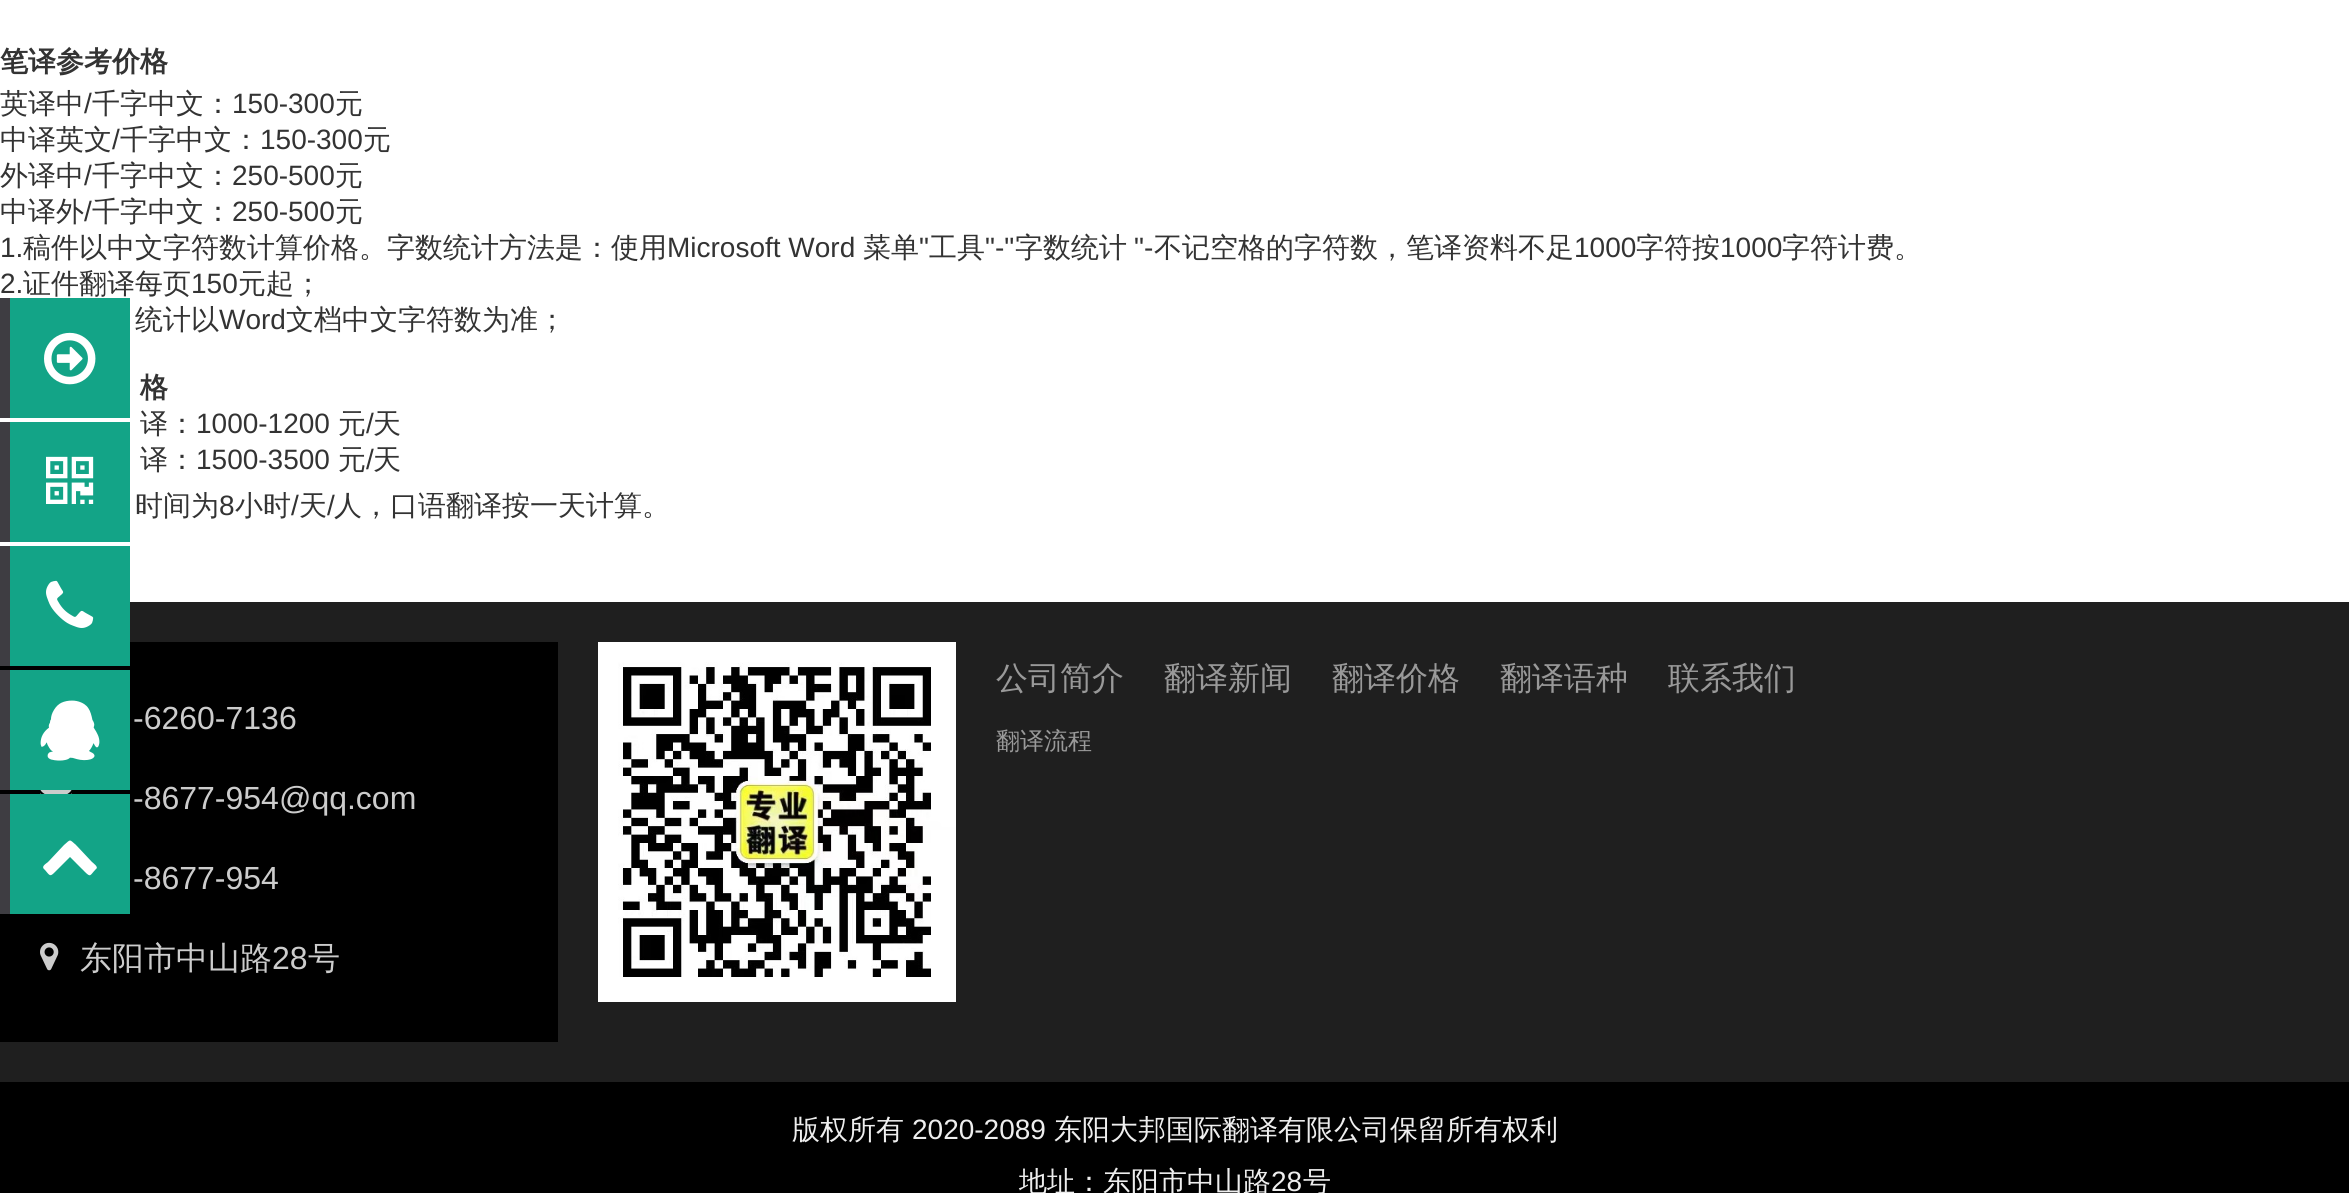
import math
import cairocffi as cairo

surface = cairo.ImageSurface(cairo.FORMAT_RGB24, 2349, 1193)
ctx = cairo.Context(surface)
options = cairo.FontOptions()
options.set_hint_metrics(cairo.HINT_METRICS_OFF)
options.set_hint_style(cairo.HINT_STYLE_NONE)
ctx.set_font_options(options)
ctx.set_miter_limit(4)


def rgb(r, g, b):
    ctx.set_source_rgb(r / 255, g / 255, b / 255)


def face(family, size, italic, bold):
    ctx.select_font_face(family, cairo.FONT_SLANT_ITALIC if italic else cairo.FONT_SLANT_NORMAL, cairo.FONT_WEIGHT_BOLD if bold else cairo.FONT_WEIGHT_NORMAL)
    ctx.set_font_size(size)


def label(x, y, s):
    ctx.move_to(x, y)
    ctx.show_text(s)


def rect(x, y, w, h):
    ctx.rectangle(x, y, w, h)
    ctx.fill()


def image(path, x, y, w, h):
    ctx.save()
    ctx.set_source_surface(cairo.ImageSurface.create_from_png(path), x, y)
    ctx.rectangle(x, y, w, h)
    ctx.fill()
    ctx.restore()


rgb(255, 255, 255)
ctx.paint()
face('WenQuanYi Zen Hei', 28, 0, 1)
rgb(51, 51, 51)
label(0, 71, '笔译参考价格')
face('WenQuanYi Zen Hei Medium', 28, 0, 0)
label(0, 113, '英译中')
face('Liberation Sans', 28, 0, 0)
label(84, 113, '/')
face('WenQuanYi Zen Hei Medium', 28, 0, 0)
label(92, 113, '千字中文：')
face('Liberation Sans', 28, 0, 0)
label(232, 113, '150-300')
face('WenQuanYi Zen Hei Medium', 28, 0, 0)
label(335, 113, '元')
label(0, 149, '中译英文')
face('Liberation Sans', 28, 0, 0)
label(112, 149, '/')
face('WenQuanYi Zen Hei Medium', 28, 0, 0)
label(120, 149, '千字中文：')
face('Liberation Sans', 28, 0, 0)
label(260, 149, '150-300')
face('WenQuanYi Zen Hei Medium', 28, 0, 0)
label(363, 149, '元')
label(0, 185, '外译中')
face('Liberation Sans', 28, 0, 0)
label(84, 185, '/')
face('WenQuanYi Zen Hei Medium', 28, 0, 0)
label(92, 185, '千字中文：')
face('Liberation Sans', 28, 0, 0)
label(232, 185, '250-500')
face('WenQuanYi Zen Hei Medium', 28, 0, 0)
label(335, 185, '元')
label(0, 221, '中译外')
face('Liberation Sans', 28, 0, 0)
label(84, 221, '/')
face('WenQuanYi Zen Hei Medium', 28, 0, 0)
label(92, 221, '千字中文：')
face('Liberation Sans', 28, 0, 0)
label(232, 221, '250-500')
face('WenQuanYi Zen Hei Medium', 28, 0, 0)
label(335, 221, '元')
face('Liberation Sans', 28, 0, 0)
label(0, 257, '1.')
face('WenQuanYi Zen Hei Medium', 28, 0, 0)
label(23, 257, '稿件以中文字符数计算价格。字数统计方法是：使用')
face('Liberation Sans', 28, 0, 0)
label(667, 257, 'Microsoft Word')
face('WenQuanYi Zen Hei Medium', 28, 0, 0)
label(863, 257, '菜单')
face('Liberation Sans', 28, 0, 0)
label(919, 257, '"')
face('WenQuanYi Zen Hei Medium', 28, 0, 0)
label(929, 257, '工具')
face('Liberation Sans', 28, 0, 0)
label(985, 257, '"-"')
face('WenQuanYi Zen Hei Medium', 28, 0, 0)
label(1015, 257, '字数统计')
face('Liberation Sans', 28, 0, 0)
label(1134, 257, '"-')
face('WenQuanYi Zen Hei Medium', 28, 0, 0)
label(1154, 257, '不记空格的字符数，笔译资料不足')
face('Liberation Sans', 28, 0, 0)
label(1574, 257, '1000')
face('WenQuanYi Zen Hei Medium', 28, 0, 0)
label(1636, 257, '字符按')
face('Liberation Sans', 28, 0, 0)
label(1720, 257, '1000')
face('WenQuanYi Zen Hei Medium', 28, 0, 0)
label(1782, 257, '字符计费。')
face('Liberation Sans', 28, 0, 0)
label(0, 293, '2.')
face('WenQuanYi Zen Hei Medium', 28, 0, 0)
label(23, 293, '证件翻译每页')
face('Liberation Sans', 28, 0, 0)
label(191, 293, '150')
face('WenQuanYi Zen Hei Medium', 28, 0, 0)
label(238, 293, '元起；')
label(135, 329, '统计以')
face('Liberation Sans', 28, 0, 0)
label(219, 329, 'Word')
face('WenQuanYi Zen Hei Medium', 28, 0, 0)
label(286, 329, '文档中文字符数为准；')
face('WenQuanYi Zen Hei', 28, 0, 1)
label(140, 397, '格')
face('WenQuanYi Zen Hei Medium', 28, 0, 0)
label(140, 433, '译：')
face('Liberation Sans', 28, 0, 0)
label(196, 433, '1000-1200')
face('WenQuanYi Zen Hei Medium', 28, 0, 0)
label(338, 433, '元')
face('Liberation Sans', 28, 0, 0)
label(366, 433, '/')
face('WenQuanYi Zen Hei Medium', 28, 0, 0)
label(373, 433, '天')
label(140, 469, '译：')
face('Liberation Sans', 28, 0, 0)
label(196, 469, '1500-3500')
face('WenQuanYi Zen Hei Medium', 28, 0, 0)
label(338, 469, '元')
face('Liberation Sans', 28, 0, 0)
label(366, 469, '/')
face('WenQuanYi Zen Hei Medium', 28, 0, 0)
label(373, 469, '天')
label(135, 515, '时间为')
face('Liberation Sans', 28, 0, 0)
label(219, 515, '8')
face('WenQuanYi Zen Hei Medium', 28, 0, 0)
label(235, 515, '小时')
face('Liberation Sans', 28, 0, 0)
label(291, 515, '/')
face('WenQuanYi Zen Hei Medium', 28, 0, 0)
label(299, 515, '天')
face('Liberation Sans', 28, 0, 0)
label(327, 515, '/')
face('WenQuanYi Zen Hei Medium', 28, 0, 0)
label(334, 515, '人，口语翻译按一天计算。')
rgb(19, 164, 135)
rect(10, 298, 120, 120)
rgb(62, 61, 66)
rect(0, 298, 10, 120)
image('image0.png', 44, 332, 52, 53)
rgb(19, 164, 135)
rect(10, 422, 120, 120)
rgb(62, 61, 66)
rect(0, 422, 10, 120)
image('image1.png', 46, 456, 48, 48)
rgb(31, 31, 31)
rect(0, 602, 2349, 480)
rgb(0, 0, 0)
rect(0, 642, 558, 400)
rgb(19, 164, 135)
rect(10, 546, 120, 120)
rgb(62, 61, 66)
rect(0, 546, 10, 120)
image('image2.png', 46, 580, 48, 48)
rgb(19, 164, 135)
rect(10, 670, 120, 120)
rgb(62, 61, 66)
rect(0, 670, 10, 120)
image('image3.png', 40, 700, 60, 61)
rgb(19, 164, 135)
rect(10, 794, 120, 120)
rgb(62, 61, 66)
rect(0, 794, 10, 120)
rgb(255, 255, 255)
ctx.new_path()
ctx.move_to(96, 869)
ctx.curve_to(90, 875, 91, 878, 85, 872)
ctx.line_to(70, 857)
ctx.line_to(55, 872)
ctx.curve_to(50, 877, 50, 876, 45, 870)
ctx.curve_to(41, 867, 44, 865, 48, 862)
ctx.line_to(64, 845)
ctx.curve_to(71, 839, 69, 839, 76, 845)
ctx.line_to(92, 862)
ctx.curve_to(93, 863, 99, 867, 96, 869)
ctx.close_path()
ctx.fill()
face('Liberation Sans', 32, 0, 0)
rgb(204, 204, 204)
label(133, 729, '-6260-7136')
image('image4.png', 40, 790, 32, 4)
label(133, 809, '-8677-954@qq.com')
label(133, 889, '-8677-954')
image('image5.png', 40, 942, 19, 29)
face('WenQuanYi Zen Hei Medium', 32, 0, 0)
label(80, 969, '东阳市中山路')
face('Liberation Sans', 32, 0, 0)
label(272, 969, '28')
face('WenQuanYi Zen Hei Medium', 32, 0, 0)
label(308, 969, '号')
image('image6.png', 598, 642, 358, 360)
rgb(153, 153, 153)
label(996, 689, '公司简介')
face('WenQuanYi Zen Hei Medium', 24, 0, 0)
label(996, 749, '翻译流程')
face('WenQuanYi Zen Hei Medium', 32, 0, 0)
label(1164, 689, '翻译新闻')
label(1332, 689, '翻译价格')
label(1500, 689, '翻译语种')
label(1668, 689, '联系我们')
rgb(0, 0, 0)
rect(0, 1082, 2349, 111)
face('WenQuanYi Zen Hei Medium', 28, 0, 0)
rgb(238, 238, 238)
label(792, 1139, '版权所有')
face('Liberation Sans', 28, 0, 0)
label(912, 1139, '2020-2089')
face('WenQuanYi Zen Hei Medium', 28, 0, 0)
label(1054, 1139, '东阳大邦国际翻译有限公司保留所有权利')
label(1019, 1191, '地址：东阳市中山路')
face('Liberation Sans', 28, 0, 0)
label(1271, 1191, '28')
face('WenQuanYi Zen Hei Medium', 28, 0, 0)
label(1303, 1191, '号')
surface.write_to_png('render.png')
